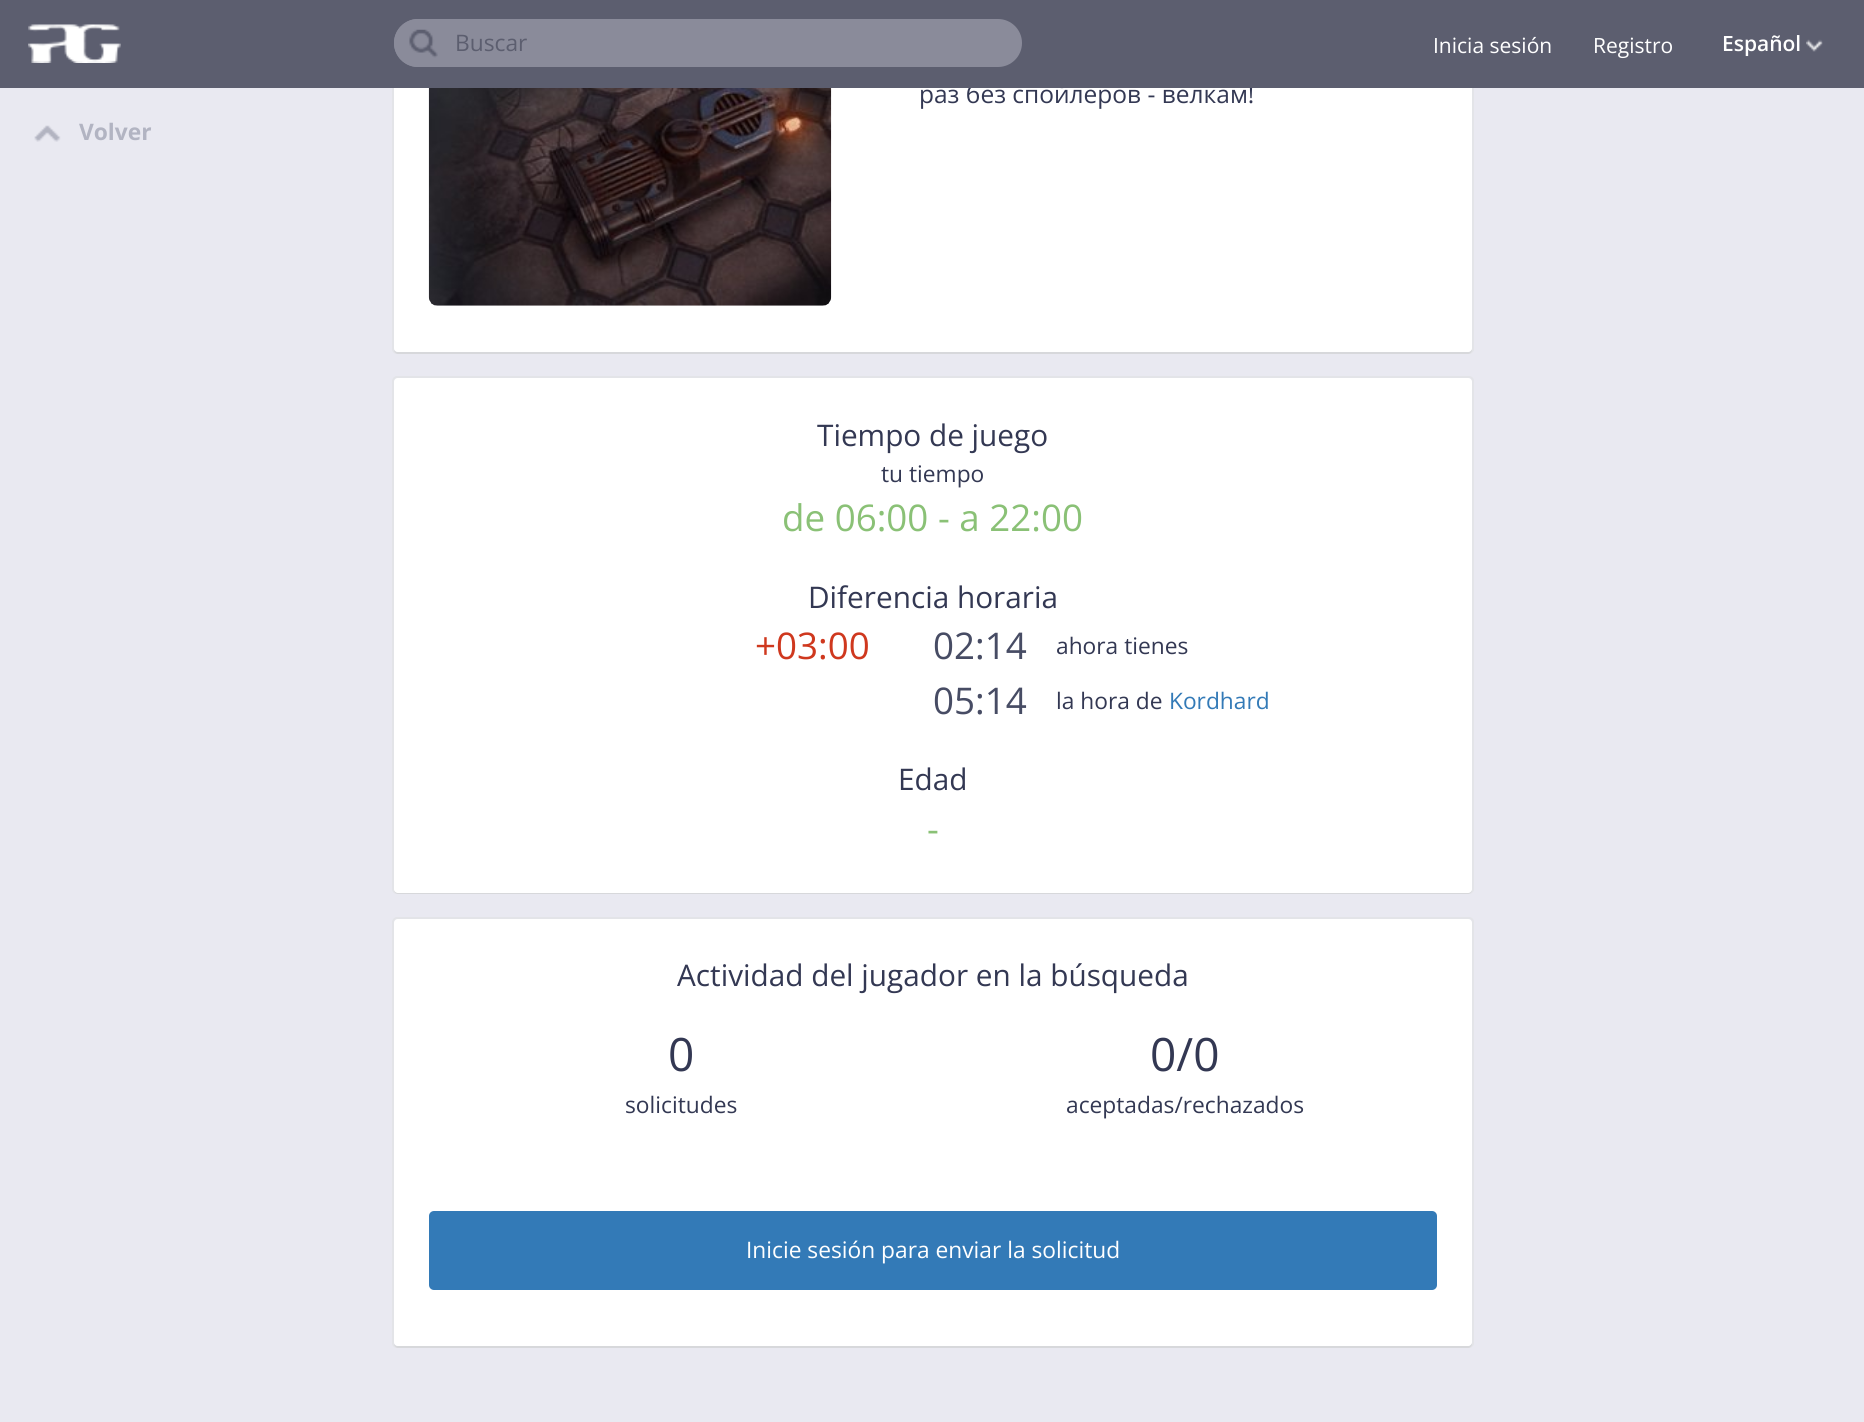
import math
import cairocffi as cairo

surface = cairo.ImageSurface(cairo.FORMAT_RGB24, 1864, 1422)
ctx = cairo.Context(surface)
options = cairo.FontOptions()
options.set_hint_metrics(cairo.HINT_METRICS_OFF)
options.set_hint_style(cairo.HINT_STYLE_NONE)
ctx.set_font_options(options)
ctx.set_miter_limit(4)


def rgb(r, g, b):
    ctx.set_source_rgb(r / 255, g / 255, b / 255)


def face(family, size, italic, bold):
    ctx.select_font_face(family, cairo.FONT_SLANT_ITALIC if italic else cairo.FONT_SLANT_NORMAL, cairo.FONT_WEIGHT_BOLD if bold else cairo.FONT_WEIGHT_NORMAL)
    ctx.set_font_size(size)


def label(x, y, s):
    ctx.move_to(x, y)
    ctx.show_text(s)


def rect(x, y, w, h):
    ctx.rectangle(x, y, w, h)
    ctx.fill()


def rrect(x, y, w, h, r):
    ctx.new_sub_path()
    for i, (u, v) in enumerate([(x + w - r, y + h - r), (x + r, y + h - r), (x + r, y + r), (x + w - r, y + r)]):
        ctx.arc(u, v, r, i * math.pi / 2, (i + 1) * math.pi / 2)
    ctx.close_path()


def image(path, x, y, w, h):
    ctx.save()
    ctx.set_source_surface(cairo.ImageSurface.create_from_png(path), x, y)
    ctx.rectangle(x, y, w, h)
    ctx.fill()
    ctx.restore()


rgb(233, 233, 241)
ctx.paint()
rrect(393, -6, 1080, 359, 4)
rgb(227, 228, 232)
ctx.stroke()
rgb(215, 216, 219)
ctx.new_path()
ctx.move_to(394, 350)
ctx.curve_to(394, 352, 396, 354, 398, 354)
ctx.line_to(1468, 354)
ctx.curve_to(1470, 354, 1472, 352, 1472, 350)
ctx.line_to(1472, -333)
ctx.line_to(1472, 348)
ctx.curve_to(1472, 350, 1470, 352, 1468, 352)
ctx.line_to(397, 352)
ctx.curve_to(396, 352, 395, 351, 394, 350)
ctx.close_path()
ctx.fill()
rgb(255, 255, 255)
rrect(394, -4, 1078, 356, 4)
ctx.fill()
face('Open Sans', 24.5, 0, 0)
rgb(51, 56, 83)
label(919, 103, 'раз без спойлеров - велкам!')
rgb(92, 94, 111)
rect(0, 0, 1864, 88)
image('image0.png', 28, 24, 93, 39)
rgb(138, 139, 154)
rrect(394, 19, 628, 48, 24)
ctx.fill()
rrect(394, 19, 133, 48, 24)
ctx.fill()
image('image1.png', 409, 29, 29, 29)
face('Open Sans', 22.75, 0, 0)
rgb(92, 94, 111)
label(455, 51, 'Buscar')
face('Open Sans', 21, 0, 0)
rgb(255, 255, 255)
label(1433, 53, 'Inicia sesión')
label(1593, 53, 'Registro')
face('Open Sans SemiBold', 21, 0, 0)
label(1722, 51, 'Español')
image('image2.png', 1806, 39, 17, 13)
image('image3.png', 34, 125, 27, 17)
face('Open Sans', 22.75, 0, 1)
rgb(178, 180, 194)
label(79, 140, 'Volver')
image('image4.png', 428, 88, 404, 218)
rrect(393, 377, 1080, 516, 4)
rgb(227, 228, 232)
ctx.stroke()
rgb(215, 216, 219)
ctx.new_path()
ctx.move_to(394, 890)
ctx.curve_to(394, 892, 396, 894, 398, 894)
ctx.line_to(1468, 894)
ctx.curve_to(1470, 894, 1472, 892, 1472, 890)
ctx.line_to(1472, 383)
ctx.line_to(1472, 889)
ctx.curve_to(1472, 891, 1470, 892, 1468, 892)
ctx.line_to(397, 892)
ctx.curve_to(396, 892, 395, 892, 394, 890)
ctx.close_path()
ctx.fill()
rgb(255, 255, 255)
rrect(394, 378, 1078, 515, 4)
ctx.fill()
face('Open Sans', 29.75, 0, 0)
rgb(51, 56, 83)
label(817, 446, 'Tiempo de juego')
face('Open Sans', 22.75, 0, 0)
label(881, 482, 'tu tiempo')
face('Open Sans', 36.75, 0, 0)
rgb(138, 193, 118)
label(782, 531, 'de 06:00 - a 22:00')
face('Open Sans', 29.75, 0, 0)
rgb(51, 56, 83)
label(808, 608, 'Diferencia horaria')
face('Open Sans', 36.75, 0, 0)
rgb(207, 56, 30)
label(755, 659, '+03:00')
rgb(71, 76, 100)
label(933, 659, '02:14')
face('Open Sans', 22.75, 0, 0)
rgb(51, 56, 83)
label(1056, 654, 'ahora tienes')
face('Open Sans', 36.75, 0, 0)
rgb(71, 76, 100)
label(933, 714, '05:14')
face('Open Sans', 22.75, 0, 0)
rgb(51, 56, 83)
label(1056, 709, 'la hora de')
rgb(51, 122, 183)
label(1169, 709, 'Kordhard')
face('Open Sans', 29.75, 0, 0)
rgb(51, 56, 83)
label(898, 790, 'Edad')
face('Open Sans', 36.75, 0, 0)
rgb(138, 193, 118)
label(927, 842, '-')
rrect(393, 918, 1080, 429, 4)
rgb(227, 228, 232)
ctx.stroke()
rgb(215, 216, 219)
ctx.new_path()
ctx.move_to(394, 1344)
ctx.curve_to(394, 1346, 396, 1348, 398, 1348)
ctx.line_to(1468, 1348)
ctx.curve_to(1470, 1348, 1472, 1346, 1472, 1344)
ctx.line_to(1472, 924)
ctx.line_to(1472, 1342)
ctx.curve_to(1472, 1344, 1470, 1346, 1468, 1346)
ctx.line_to(397, 1346)
ctx.curve_to(396, 1346, 395, 1345, 394, 1344)
ctx.close_path()
ctx.fill()
rgb(255, 255, 255)
rrect(394, 919, 1078, 427, 4)
ctx.fill()
face('Open Sans', 29.75, 0, 0)
rgb(51, 56, 83)
label(677, 986, 'Actividad del jugador en la búsqueda')
face('Open Sans', 46, 0, 0)
label(668, 1071, '0')
face('Open Sans', 22.75, 0, 0)
label(625, 1113, 'solicitudes')
face('Open Sans', 46, 0, 0)
label(1150, 1071, '0/0')
face('Open Sans', 22.75, 0, 0)
label(1066, 1113, 'aceptadas/rechazados')
rgb(51, 122, 183)
rrect(429, 1211, 1008, 79, 5)
ctx.fill()
rgb(255, 255, 255)
label(746, 1258, 'Inicie sesión para enviar la solicitud')
surface.write_to_png('render.png')
